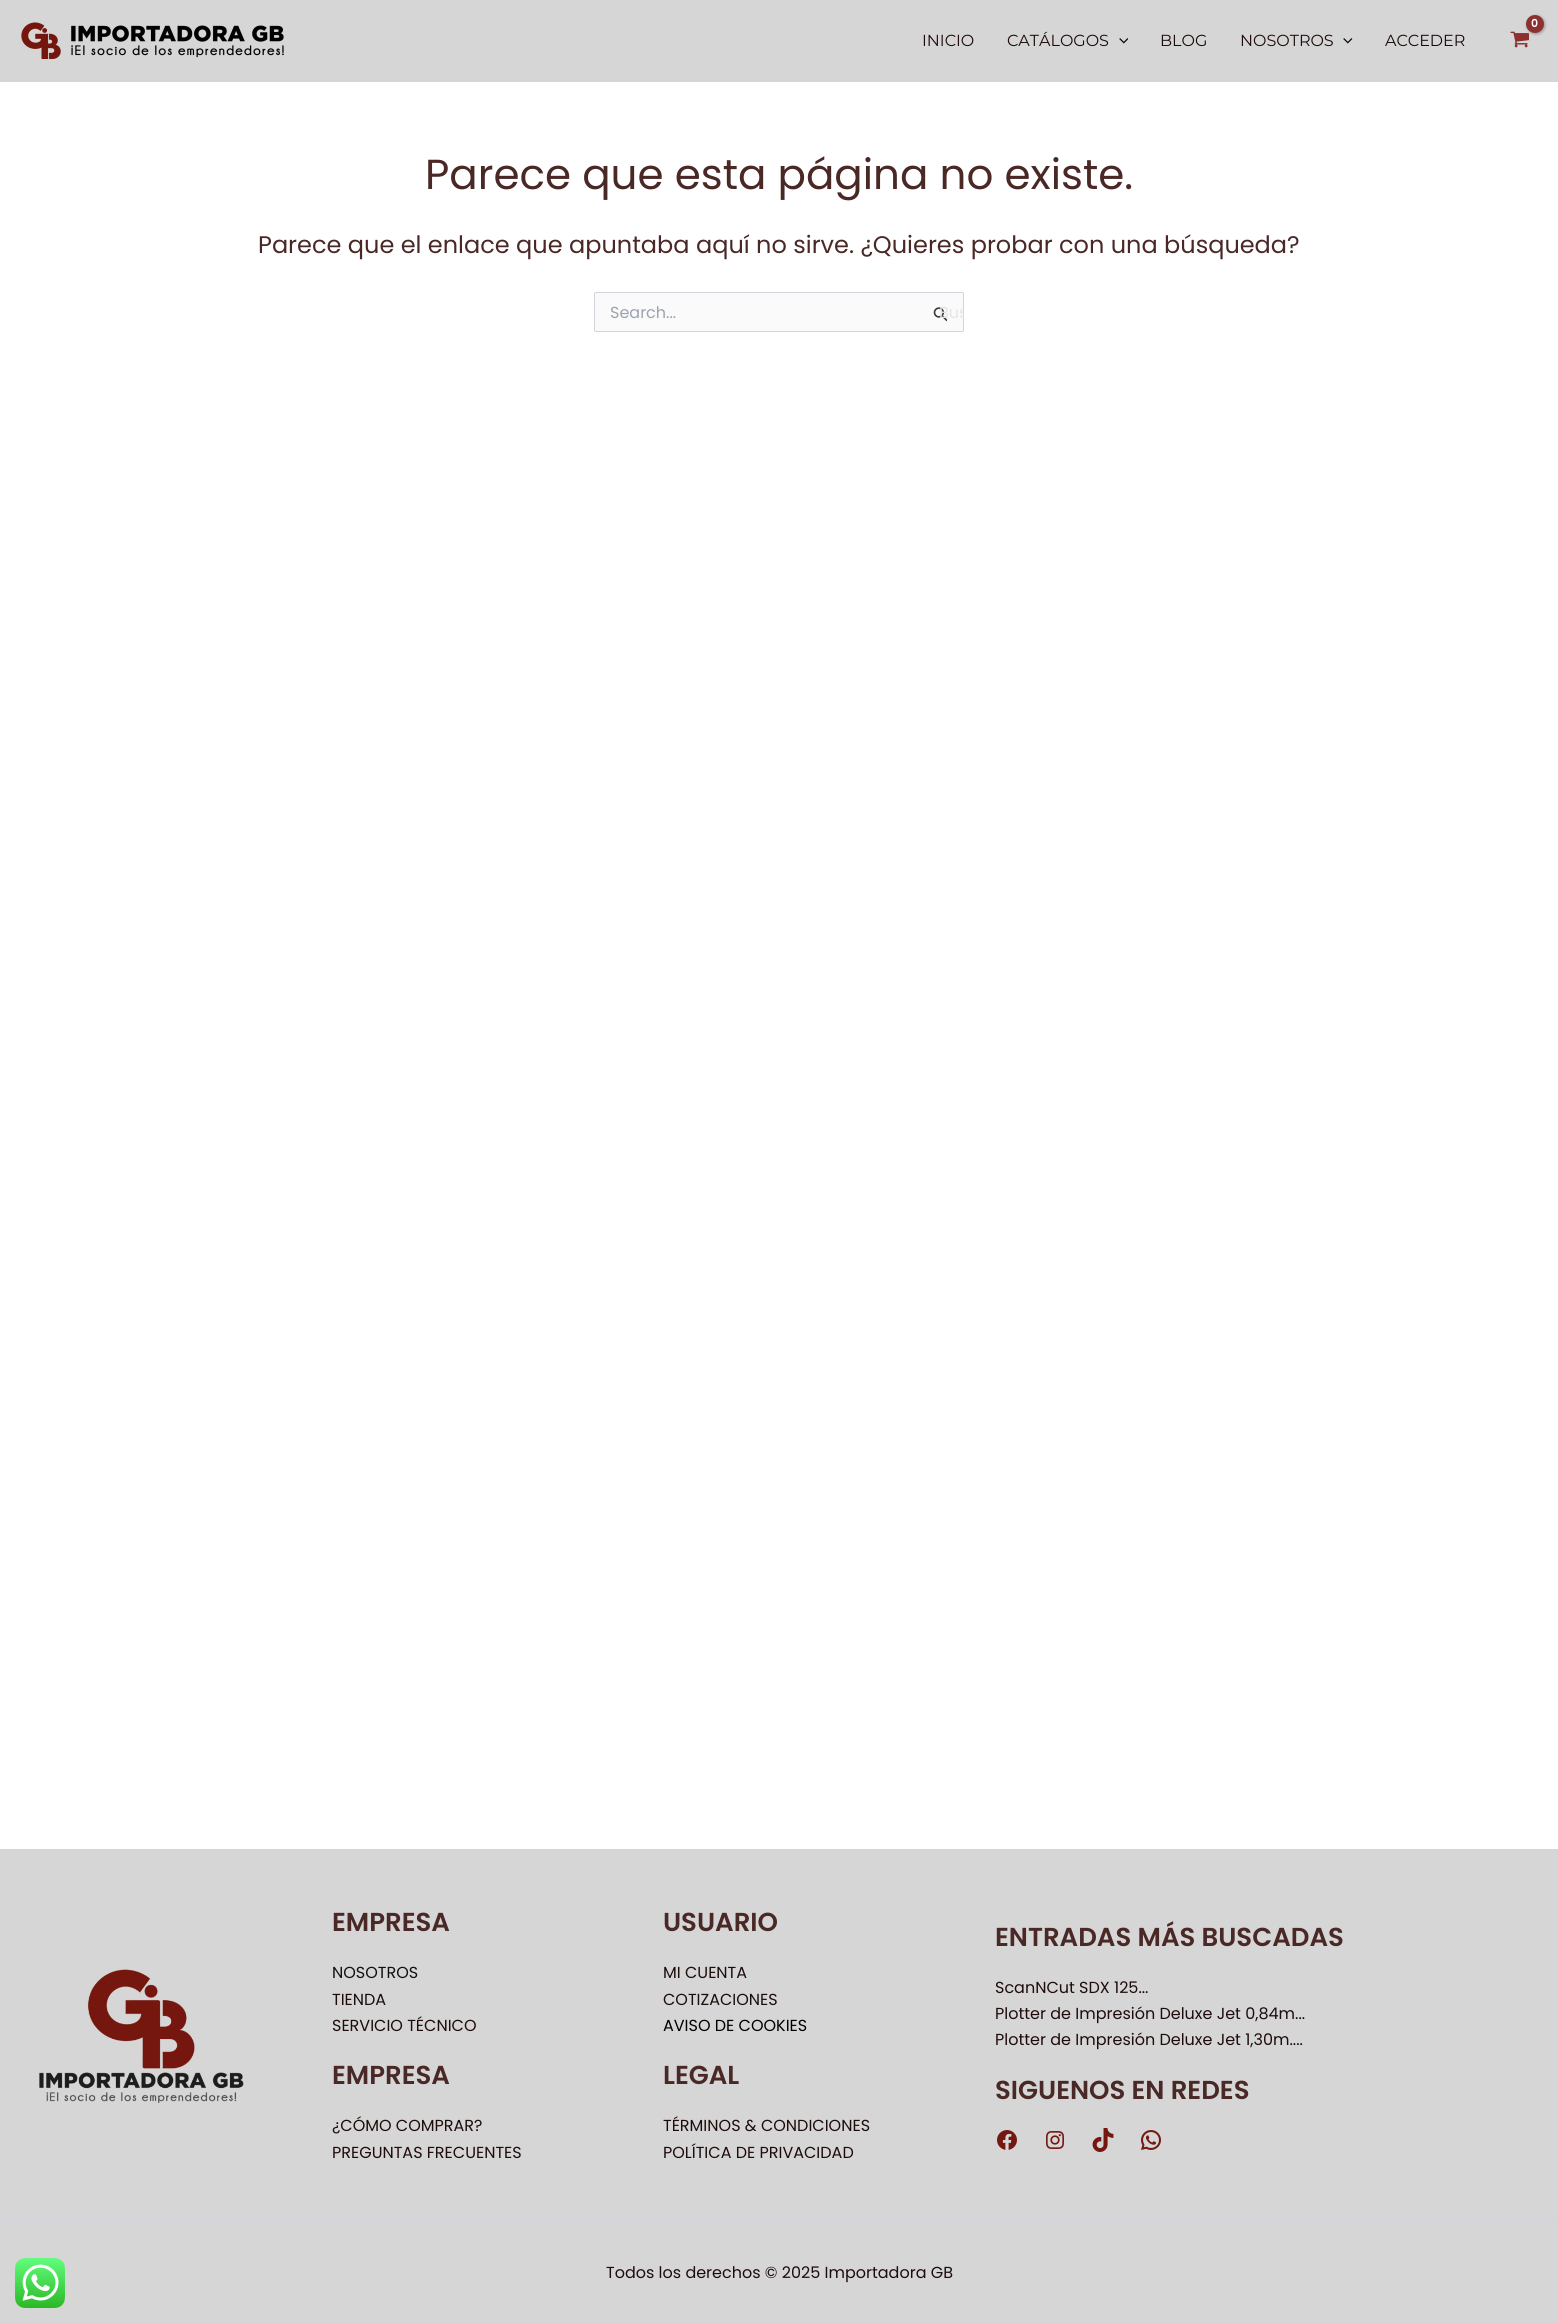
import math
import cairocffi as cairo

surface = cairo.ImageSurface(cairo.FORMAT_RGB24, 1558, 2323)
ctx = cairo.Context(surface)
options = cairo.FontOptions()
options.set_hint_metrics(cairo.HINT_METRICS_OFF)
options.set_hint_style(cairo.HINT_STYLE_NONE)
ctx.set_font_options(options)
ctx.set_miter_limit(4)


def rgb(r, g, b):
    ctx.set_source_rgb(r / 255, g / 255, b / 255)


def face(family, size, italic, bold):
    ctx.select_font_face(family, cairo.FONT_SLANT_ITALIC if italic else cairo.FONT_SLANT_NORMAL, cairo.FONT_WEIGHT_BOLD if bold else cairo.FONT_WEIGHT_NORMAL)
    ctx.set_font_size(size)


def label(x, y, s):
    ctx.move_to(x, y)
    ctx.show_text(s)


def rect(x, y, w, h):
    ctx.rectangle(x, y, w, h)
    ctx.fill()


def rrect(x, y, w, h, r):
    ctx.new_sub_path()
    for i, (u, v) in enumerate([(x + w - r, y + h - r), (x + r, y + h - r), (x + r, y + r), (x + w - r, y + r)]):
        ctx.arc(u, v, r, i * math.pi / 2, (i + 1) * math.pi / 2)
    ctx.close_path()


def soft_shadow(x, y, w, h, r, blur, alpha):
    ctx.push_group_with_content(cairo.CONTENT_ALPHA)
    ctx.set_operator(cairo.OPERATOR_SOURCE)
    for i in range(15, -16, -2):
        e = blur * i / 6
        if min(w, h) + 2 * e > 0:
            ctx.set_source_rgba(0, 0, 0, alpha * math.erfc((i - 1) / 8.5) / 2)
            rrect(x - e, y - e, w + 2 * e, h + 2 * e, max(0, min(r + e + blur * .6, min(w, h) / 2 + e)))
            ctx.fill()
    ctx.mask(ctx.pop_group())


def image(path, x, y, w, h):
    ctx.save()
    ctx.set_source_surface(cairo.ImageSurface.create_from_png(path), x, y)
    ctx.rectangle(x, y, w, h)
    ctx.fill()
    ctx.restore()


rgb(255, 255, 255)
ctx.paint()
rgb(214, 214, 214)
rect(0, 2223, 1558, 100)
image('image0.png', 15, 2258, 50, 50)
rect(0, 0, 1558, 81)
rgb(209, 213, 219)
rect(0, 81, 1558, 1)
image('image1.png', 21, 22, 263, 38)
image('image2.png', 1510, 31, 19, 17)
rgb(0, 0, 0)
soft_shadow(1527, 16, 18, 18, 9, 1.5, 0.3)
rgb(140, 48, 48)
ctx.arc(1535, 24, 9, 0, 2 * math.pi)
ctx.fill()
face('Poppins SemiBold', 11, 0, 0)
rgb(255, 255, 255)
label(1531, 27, '0')
face('Montserrat', 16, 0, 0)
rgb(30, 12, 12)
label(922, 46, 'INICIO')
label(1007, 46, 'CATÁLOGOS')
image('image3.png', 1119, 38, 9, 6)
label(1160, 46, 'BLOG')
label(1240, 46, 'NOSOTROS')
image('image4.png', 1343, 38, 10, 6)
label(1385, 46, 'ACCEDER')
face('Poppins', 42, 0, 0)
rgb(73, 40, 38)
label(425, 189, 'Parece que esta página no existe.')
face('Poppins', 24, 0, 0)
label(258, 253, 'Parece que el enlace que apuntaba aquí no sirve. ¿Quieres probar con una búsqueda?')
rgb(250, 250, 250)
rrect(594.5, 292.5, 369, 39, 1.5)
ctx.fill_preserve()
rgb(209, 213, 219)
ctx.set_line_width(1)
ctx.stroke()
face('Poppins', 16, 0, 0)
rgb(156, 163, 175)
label(610, 318, 'Search...')
image('image5.png', 933, 307, 14, 15)
ctx.save()
rrect(919, 292, 45, 42, 2)
ctx.clip()
rgb(229, 229, 229)
label(939, 318, 'Bus')
ctx.restore()
rgb(214, 214, 214)
rect(0, 1850, 1558, 372)
rgb(209, 213, 219)
rect(0, 1849, 1558, 1)
image('image6.png', 39, 1969, 205, 134)
face('Poppins SemiBold', 26, 0, 0)
rgb(73, 40, 38)
label(332, 1931, 'EMPRESA')
face('Poppins', 16, 0, 0)
rgb(17, 17, 17)
label(332, 1978, 'NOSOTROS')
rgb(30, 12, 12)
label(332, 2005, 'TIENDA')
label(332, 2031, 'SERVICIO TÉCNICO')
face('Poppins SemiBold', 26, 0, 0)
rgb(73, 40, 38)
label(332, 2084, 'EMPRESA')
face('Poppins', 16, 0, 0)
rgb(30, 12, 12)
label(332, 2131, '¿CÓMO COMPRAR?')
label(332, 2158, 'PREGUNTAS FRECUENTES')
face('Poppins SemiBold', 26, 0, 0)
rgb(73, 40, 38)
label(663, 1931, 'USUARIO')
face('Poppins', 16, 0, 0)
rgb(30, 12, 12)
label(663, 1978, 'MI CUENTA')
label(663, 2005, 'COTIZACIONES')
rgb(0, 0, 0)
label(663, 2031, 'AVISO DE COOKIES')
face('Poppins SemiBold', 26, 0, 0)
rgb(73, 40, 38)
label(663, 2084, 'LEGAL')
face('Poppins', 16, 0, 0)
rgb(30, 12, 12)
label(663, 2131, 'TÉRMINOS & CONDICIONES')
label(663, 2158, 'POLÍTICA DE PRIVACIDAD')
face('Poppins SemiBold', 26, 0, 0)
rgb(73, 40, 38)
label(995, 1946, 'ENTRADAS MÁS BUSCADAS')
face('Poppins', 16, 0, 0)
rgb(30, 12, 12)
label(995, 1993, 'ScanNCut SDX 125...')
label(995, 2019, 'Plotter de Impresión Deluxe Jet 0,84m...')
label(995, 2045, 'Plotter de Impresión Deluxe Jet 1,30m....')
face('Poppins SemiBold', 26, 0, 0)
rgb(73, 40, 38)
label(995, 2099, 'SIGUENOS EN REDES')
image('image7.png', 997, 2130, 20, 20)
image('image8.png', 1046, 2131, 18, 18)
image('image9.png', 1092, 2128, 22, 24)
image('image10.png', 1141, 2130, 20, 20)
rgb(209, 213, 219)
rect(0, 2222, 1558, 1)
face('Poppins', 16, 0, 0)
rgb(30, 12, 12)
label(606, 2278, 'Todos los derechos © 2025 Importadora GB')
surface.write_to_png('render.png')
